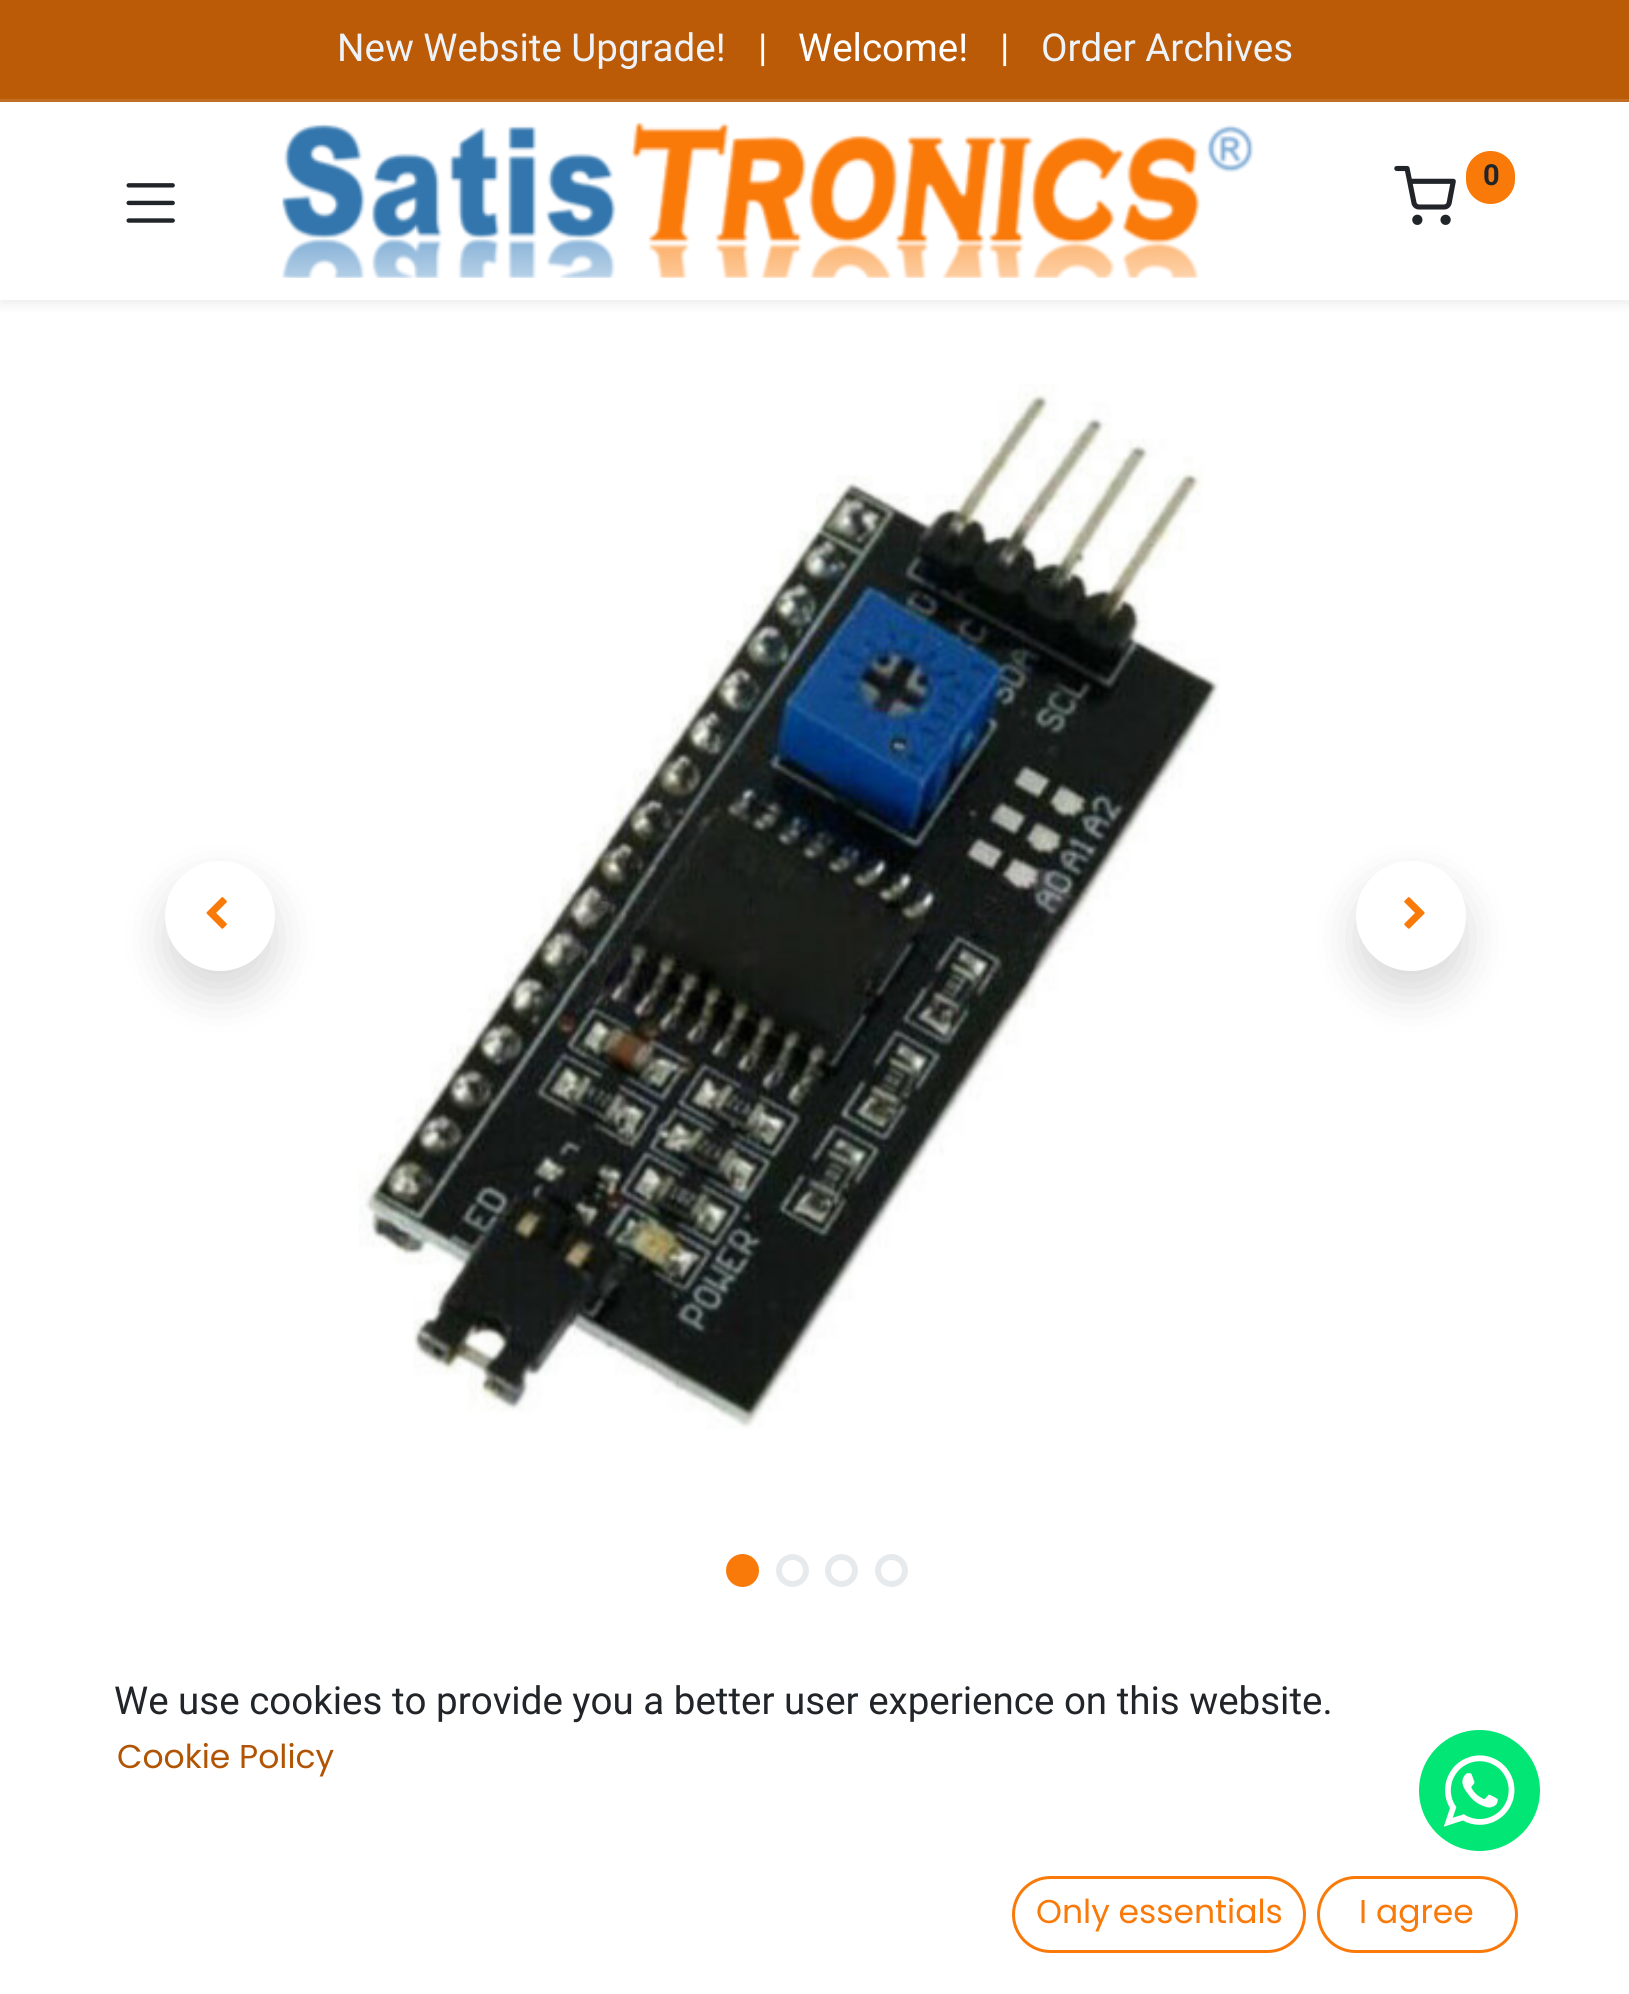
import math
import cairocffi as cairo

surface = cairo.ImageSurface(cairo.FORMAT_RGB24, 1629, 1994)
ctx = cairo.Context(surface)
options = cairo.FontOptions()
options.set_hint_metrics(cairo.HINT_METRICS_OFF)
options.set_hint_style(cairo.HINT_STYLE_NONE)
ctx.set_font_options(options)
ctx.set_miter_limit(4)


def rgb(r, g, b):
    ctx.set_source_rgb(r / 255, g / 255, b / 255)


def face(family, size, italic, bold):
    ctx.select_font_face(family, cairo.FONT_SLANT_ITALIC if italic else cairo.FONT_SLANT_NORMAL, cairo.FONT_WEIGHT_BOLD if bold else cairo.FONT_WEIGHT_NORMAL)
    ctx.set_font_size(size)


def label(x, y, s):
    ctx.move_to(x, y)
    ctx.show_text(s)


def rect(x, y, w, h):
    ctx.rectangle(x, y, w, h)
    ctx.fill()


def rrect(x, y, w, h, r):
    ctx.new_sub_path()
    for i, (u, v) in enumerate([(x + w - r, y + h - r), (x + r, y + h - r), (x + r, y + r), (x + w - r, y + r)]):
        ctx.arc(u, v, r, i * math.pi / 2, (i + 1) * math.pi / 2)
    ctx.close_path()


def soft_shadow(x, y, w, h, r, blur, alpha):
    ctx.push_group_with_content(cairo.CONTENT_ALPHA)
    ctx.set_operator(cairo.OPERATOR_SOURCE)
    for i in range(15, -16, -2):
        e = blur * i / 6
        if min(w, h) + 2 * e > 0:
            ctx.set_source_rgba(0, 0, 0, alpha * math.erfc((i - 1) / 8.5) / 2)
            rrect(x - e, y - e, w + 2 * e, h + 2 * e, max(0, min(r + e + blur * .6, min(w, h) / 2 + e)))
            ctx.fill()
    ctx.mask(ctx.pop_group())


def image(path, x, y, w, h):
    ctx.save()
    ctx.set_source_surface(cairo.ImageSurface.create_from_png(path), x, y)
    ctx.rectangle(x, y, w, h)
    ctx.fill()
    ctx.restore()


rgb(255, 255, 255)
ctx.paint()
rgb(187, 91, 7)
rect(0, 0, 1629, 99)
rgb(195, 111, 37)
rect(0, 99, 1629, 3)
face('Roboto', 38.5, 0, 0)
rgb(237, 243, 248)
label(337, 61, 'New Website Upgrade!')
rgb(255, 255, 255)
label(758, 61, '|')
label(798, 61, 'Welcome!')
label(1000, 61, '|')
rgb(237, 243, 248)
label(1041, 61, 'Order Archives')
rgb(0, 0, 0)
soft_shadow(0, 107, 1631, 198, 0, 5.5, 0.07)
rgb(255, 255, 255)
rect(0, 102, 1629, 198)
image('image0.png', 282, 122, 972, 156)
image('image1.png', 1394, 165, 62, 60)
rgb(249, 121, 9)
rrect(1466, 151, 49, 53, 24.5)
ctx.fill()
face('Roboto', 29, 0, 1)
rgb(33, 37, 41)
label(1483, 185, '0')
image('image2.png', 126, 183, 49, 40)
rgb(0, 0, 0)
soft_shadow(165, 883, 110, 110, 55, 22, 0.15)
rgb(255, 255, 255)
ctx.arc(220, 916, 55, 0, 2 * math.pi)
ctx.fill()
image('image3.png', 206, 897, 21, 32)
image('image4.png', 358, 384, 862, 1045)
rgb(0, 0, 0)
soft_shadow(1356, 883, 110, 110, 55, 22, 0.15)
rgb(255, 255, 255)
ctx.arc(1411, 916, 55, 0, 2 * math.pi)
ctx.fill()
image('image5.png', 1404, 897, 21, 32)
rgb(249, 121, 9)
ctx.arc(742.5, 1570.5, 13.5, 0, 2 * math.pi)
ctx.fill_preserve()
ctx.set_line_width(6)
ctx.stroke()
ctx.arc(792.5, 1570.5, 13.5, 0, 2 * math.pi)
rgb(231, 234, 237)
ctx.stroke()
ctx.arc(841.5, 1570.5, 13.5, 0, 2 * math.pi)
ctx.stroke()
ctx.arc(891.5, 1570.5, 13.5, 0, 2 * math.pi)
ctx.stroke()
face('Roboto', 38.5, 0, 0)
rgb(33, 37, 41)
label(114, 1714, 'We use cookies to provide you a better user experience on this website.')
face('Poppins', 33, 0, 0)
rgb(177, 85, 4)
label(117, 1768, 'Cookie Policy')
rrect(1013.5, 1877.5, 291, 74, 37)
rgb(249, 121, 9)
ctx.set_line_width(3)
ctx.stroke()
label(1036, 1923, 'Only essentials')
rrect(1318.5, 1877.5, 198, 74, 37)
ctx.stroke()
label(1359, 1923, 'I agree')
rgb(1, 230, 117)
ctx.new_path()
ctx.arc(1479.5, 1790.5, 64.5, 0, 2 * math.pi)
ctx.fill_preserve()
rgb(255, 255, 255)
ctx.set_line_width(8)
ctx.stroke()
image('image6.png', 1443, 1755, 72, 72)
surface.write_to_png('render.png')
